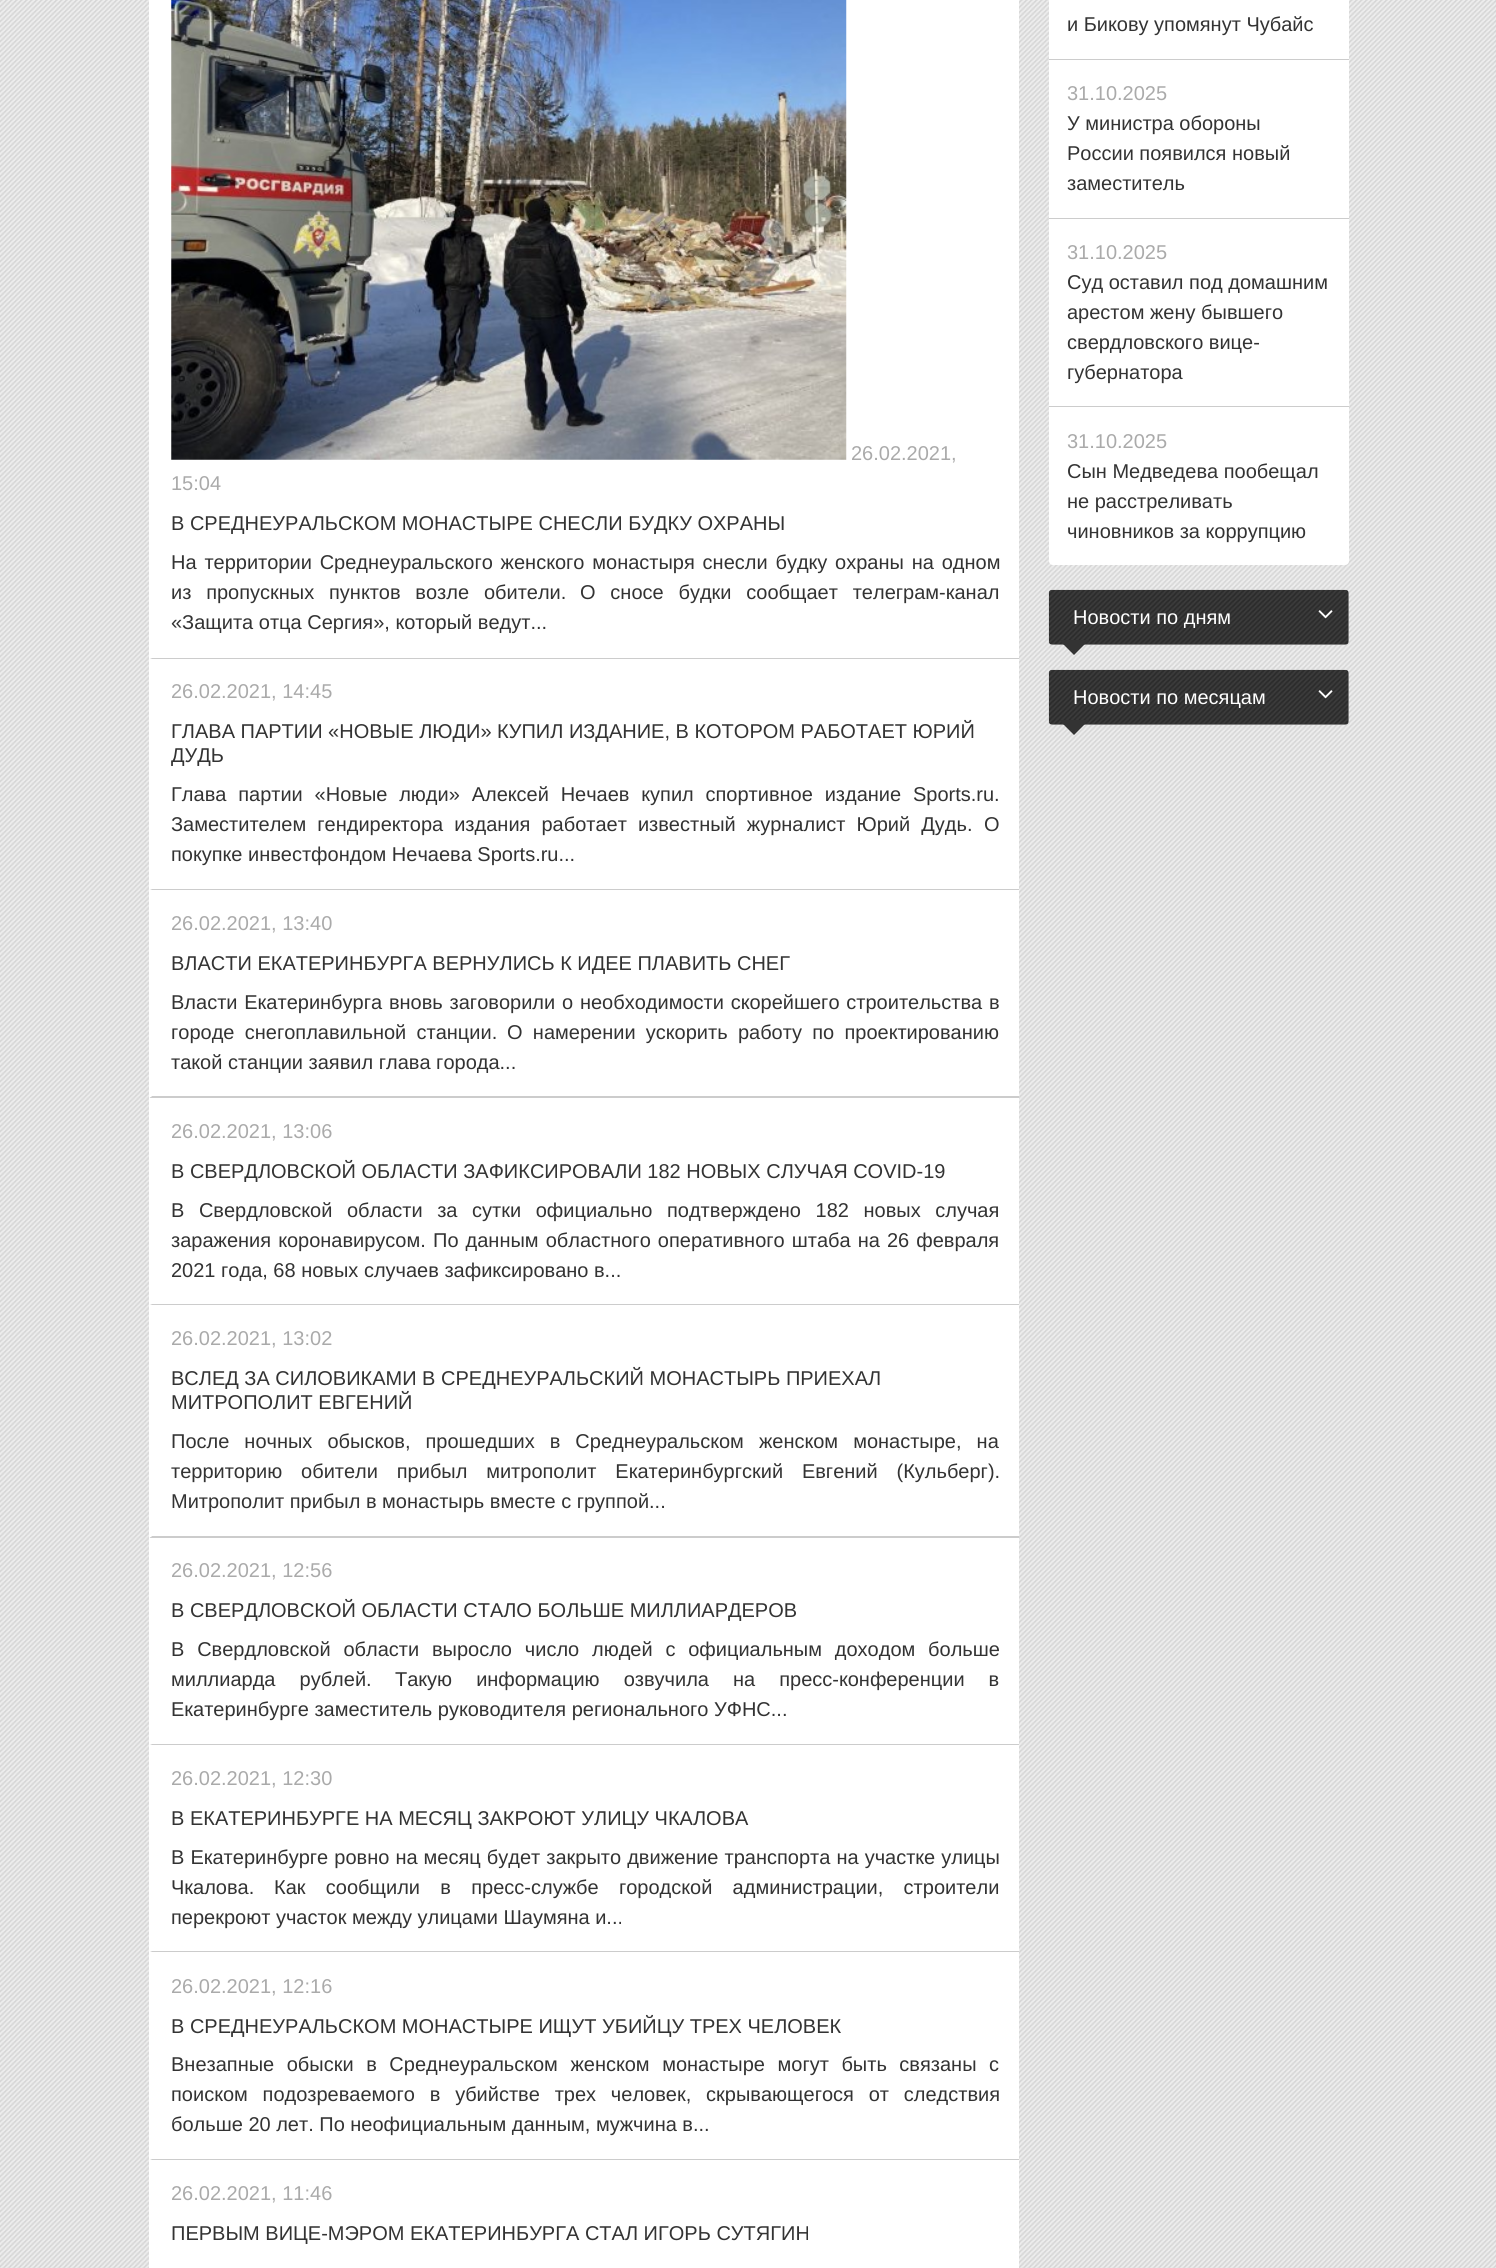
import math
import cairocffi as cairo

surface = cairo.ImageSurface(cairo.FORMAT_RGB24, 1496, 2268)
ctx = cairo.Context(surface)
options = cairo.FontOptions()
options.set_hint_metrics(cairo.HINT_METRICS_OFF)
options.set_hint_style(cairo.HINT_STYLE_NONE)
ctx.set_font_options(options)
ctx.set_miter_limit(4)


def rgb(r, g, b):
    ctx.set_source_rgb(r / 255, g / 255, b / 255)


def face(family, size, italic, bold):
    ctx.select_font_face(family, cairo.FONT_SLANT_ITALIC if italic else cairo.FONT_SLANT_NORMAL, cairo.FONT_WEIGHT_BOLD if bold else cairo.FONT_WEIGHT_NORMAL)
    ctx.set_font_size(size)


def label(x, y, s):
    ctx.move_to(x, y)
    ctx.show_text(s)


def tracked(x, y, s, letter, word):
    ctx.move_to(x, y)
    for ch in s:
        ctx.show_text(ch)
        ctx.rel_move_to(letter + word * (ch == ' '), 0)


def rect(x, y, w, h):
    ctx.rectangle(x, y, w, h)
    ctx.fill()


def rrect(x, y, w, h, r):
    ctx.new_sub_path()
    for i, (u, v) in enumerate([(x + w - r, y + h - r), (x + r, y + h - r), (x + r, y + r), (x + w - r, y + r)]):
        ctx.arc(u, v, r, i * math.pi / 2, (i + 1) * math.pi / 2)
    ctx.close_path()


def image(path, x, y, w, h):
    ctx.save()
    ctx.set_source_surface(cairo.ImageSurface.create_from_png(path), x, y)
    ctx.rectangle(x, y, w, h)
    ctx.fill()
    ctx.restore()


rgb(255, 255, 255)
ctx.paint()
image('image0.png', 0, 0, 1496, 2268)
rgb(255, 255, 255)
rrect(1049, -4, 300, 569, 4)
ctx.fill()
rgb(204, 204, 204)
rect(1049, 59, 300, 1)
face('Liberation Sans', 20, 0, 0)
rgb(51, 51, 51)
label(1067, 31, 'и Бикову упомянут Чубайс')
rgb(204, 204, 204)
rect(1049, 218, 300, 1)
rgb(170, 170, 170)
label(1067, 100, '31.10.2025')
rgb(51, 51, 51)
label(1067, 130, 'У министра обороны')
label(1067, 160, 'России появился новый')
label(1067, 190, 'заместитель')
rgb(204, 204, 204)
rect(1049, 406, 300, 1)
rgb(170, 170, 170)
label(1067, 259, '31.10.2025')
rgb(51, 51, 51)
label(1067, 289, 'Суд оставил под домашним')
label(1067, 319, 'арестом жену бывшего')
label(1067, 349, 'свердловского вице-')
label(1067, 379, 'губернатора')
rgb(170, 170, 170)
label(1067, 448, '31.10.2025')
rgb(51, 51, 51)
label(1067, 478, 'Сын Медведева пообещал')
label(1067, 508, 'не расстреливать')
label(1067, 538, 'чиновников за коррупцию')
image('image1.png', 1048, 589, 301, 56)
rgb(255, 255, 255)
label(1073, 624, 'Новости по дням')
image('image2.png', 1318, 610, 15, 9)
rgb(51, 51, 51)
ctx.new_path()
ctx.move_to(1059, 640)
ctx.line_to(1089, 640)
ctx.line_to(1074, 655)
ctx.close_path()
ctx.fill()
image('image3.png', 1048, 669, 301, 56)
rgb(255, 255, 255)
label(1073, 704, 'Новости по месяцам')
image('image2.png', 1318, 690, 15, 9)
rgb(51, 51, 51)
ctx.new_path()
ctx.move_to(1059, 720)
ctx.line_to(1089, 720)
ctx.line_to(1074, 735)
ctx.close_path()
ctx.fill()
rgb(255, 255, 255)
rect(149, 0, 870, 2268)
rgb(204, 204, 204)
ctx.new_path()
ctx.move_to(1019, 659)
ctx.line_to(149, 659)
ctx.line_to(152, 658)
ctx.line_to(1019, 658)
ctx.close_path()
ctx.fill()
rgb(255, 255, 255)
ctx.new_path()
ctx.move_to(149, 659)
ctx.line_to(149, -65)
ctx.line_to(152, -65)
ctx.line_to(152, 658)
ctx.close_path()
ctx.fill()
image('image4.png', 171, 0, 676, 460)
rgb(170, 170, 170)
label(851, 460, '26.02.2021,')
label(171, 490, '15:04')
rgb(51, 51, 51)
label(171, 530, 'В СРЕДНЕУРАЛЬСКОМ МОНАСТЫРЕ СНЕСЛИ БУДКУ ОХРАНЫ')
tracked(171, 569, 'На территории Среднеуральского женского монастыря снесли будку охраны на одном', 0, 2.25)
tracked(171, 599, 'из пропускных пунктов возле обители.', 0, 9.25)
tracked(580, 599, 'О сносе будки сообщает телеграм-канал', 0, 9.25)
label(171, 629, '«Защита отца Сергия», который ведут...')
rgb(204, 204, 204)
ctx.new_path()
ctx.move_to(1019, 890)
ctx.line_to(149, 890)
ctx.line_to(152, 889)
ctx.line_to(1019, 889)
ctx.close_path()
ctx.fill()
rgb(255, 255, 255)
ctx.new_path()
ctx.move_to(149, 890)
ctx.line_to(149, 659)
ctx.line_to(152, 659)
ctx.line_to(152, 889)
ctx.close_path()
ctx.fill()
rgb(170, 170, 170)
label(171, 698, '26.02.2021, 14:45')
rgb(51, 51, 51)
label(171, 738, 'ГЛАВА ПАРТИИ «НОВЫЕ ЛЮДИ» КУПИЛ ИЗДАНИЕ, В КОТОРОМ РАБОТАЕТ ЮРИЙ')
label(171, 762, 'ДУДЬ')
tracked(171, 801, 'Глава партии «Новые люди» Алексей Нечаев купил спортивное издание Sports.ru.', 0, 6.25)
tracked(171, 831, 'Заместителем гендиректора издания работает известный журналист Юрий Дудь.', 0, 5.5)
label(984, 831, 'О')
label(171, 861, 'покупке инвестфондом Нечаева Sports.ru...')
rgb(204, 204, 204)
ctx.new_path()
ctx.move_to(1019, 1098)
ctx.line_to(149, 1098)
ctx.line_to(152, 1096)
ctx.line_to(1019, 1096)
ctx.close_path()
ctx.fill()
rgb(255, 255, 255)
ctx.new_path()
ctx.move_to(149, 1098)
ctx.line_to(149, 890)
ctx.line_to(152, 890)
ctx.line_to(152, 1096)
ctx.close_path()
ctx.fill()
rgb(170, 170, 170)
label(171, 930, '26.02.2021, 13:40')
rgb(51, 51, 51)
label(171, 970, 'ВЛАСТИ ЕКАТЕРИНБУРГА ВЕРНУЛИСЬ К ИДЕЕ ПЛАВИТЬ СНЕГ')
tracked(171, 1009, 'Власти Екатеринбурга вновь заговорили о необходимости скорейшего строительства в', 0, 1.25)
tracked(171, 1039, 'городе снегоплавильной станции.', 0, 4.75)
tracked(507, 1039, 'О намерении ускорить работу по проектированию', 0, 4.75)
label(171, 1069, 'такой станции заявил глава города...')
rgb(204, 204, 204)
ctx.new_path()
ctx.move_to(1019, 1305)
ctx.line_to(149, 1305)
ctx.line_to(152, 1304)
ctx.line_to(1019, 1304)
ctx.close_path()
ctx.fill()
rgb(255, 255, 255)
ctx.new_path()
ctx.move_to(149, 1305)
ctx.line_to(149, 1098)
ctx.line_to(152, 1098)
ctx.line_to(152, 1304)
ctx.close_path()
ctx.fill()
rgb(170, 170, 170)
label(171, 1138, '26.02.2021, 13:06')
rgb(51, 51, 51)
label(171, 1178, 'В СВЕРДЛОВСКОЙ ОБЛАСТИ ЗАФИКСИРОВАЛИ 182 НОВЫХ СЛУЧАЯ COVID-19')
tracked(171, 1217, 'В Свердловской области за сутки официально подтверждено 182 новых случая', 0, 9)
tracked(171, 1247, 'заражения коронавирусом.', 0, 1.5)
tracked(433, 1247, 'По данным областного оперативного штаба на 26 февраля', 0, 1.5)
label(171, 1277, '2021 года, 68 новых случаев зафиксировано в...')
rgb(204, 204, 204)
ctx.new_path()
ctx.move_to(1019, 1538)
ctx.line_to(149, 1538)
ctx.line_to(152, 1536)
ctx.line_to(1019, 1536)
ctx.close_path()
ctx.fill()
rgb(255, 255, 255)
ctx.new_path()
ctx.move_to(149, 1538)
ctx.line_to(149, 1305)
ctx.line_to(152, 1305)
ctx.line_to(152, 1536)
ctx.close_path()
ctx.fill()
rgb(170, 170, 170)
label(171, 1345, '26.02.2021, 13:02')
rgb(51, 51, 51)
label(171, 1385, 'ВСЛЕД ЗА СИЛОВИКАМИ В СРЕДНЕУРАЛЬСКИЙ МОНАСТЫРЬ ПРИЕХАЛ')
label(171, 1409, 'МИТРОПОЛИТ ЕВГЕНИЙ')
tracked(171, 1448, 'После ночных обысков, прошедших в Среднеуральском женском монастыре, на', 0, 9.5)
tracked(171, 1478, 'территорию обители прибыл митрополит Екатеринбургский Евгений (Кульберг).', 0, 13.25)
label(171, 1508, 'Митрополит прибыл в монастырь вместе с группой...')
rgb(204, 204, 204)
ctx.new_path()
ctx.move_to(1019, 1745)
ctx.line_to(149, 1745)
ctx.line_to(152, 1744)
ctx.line_to(1019, 1744)
ctx.close_path()
ctx.fill()
rgb(255, 255, 255)
ctx.new_path()
ctx.move_to(149, 1745)
ctx.line_to(149, 1538)
ctx.line_to(152, 1538)
ctx.line_to(152, 1744)
ctx.close_path()
ctx.fill()
rgb(170, 170, 170)
label(171, 1577, '26.02.2021, 12:56')
rgb(51, 51, 51)
label(171, 1617, 'В СВЕРДЛОВСКОЙ ОБЛАСТИ СТАЛО БОЛЬШЕ МИЛЛИАРДЕРОВ')
tracked(171, 1656, 'В Свердловской области выросло число людей с официальным доходом больше', 0, 7.25)
tracked(171, 1686, 'миллиарда рублей.', 0, 18.5)
tracked(395, 1686, 'Такую информацию озвучила на пресс-конференции в', 0, 18.5)
label(171, 1716, 'Екатеринбурге заместитель руководителя регионального УФНС...')
rgb(204, 204, 204)
ctx.new_path()
ctx.move_to(1019, 1952)
ctx.line_to(149, 1952)
ctx.line_to(152, 1951)
ctx.line_to(1019, 1951)
ctx.close_path()
ctx.fill()
rgb(255, 255, 255)
ctx.new_path()
ctx.move_to(149, 1952)
ctx.line_to(149, 1745)
ctx.line_to(152, 1745)
ctx.line_to(152, 1951)
ctx.close_path()
ctx.fill()
rgb(170, 170, 170)
label(171, 1785, '26.02.2021, 12:30')
rgb(51, 51, 51)
label(171, 1825, 'В ЕКАТЕРИНБУРГЕ НА МЕСЯЦ ЗАКРОЮТ УЛИЦУ ЧКАЛОВА')
tracked(171, 1864, 'В Екатеринбурге ровно на месяц будет закрыто движение транспорта на участке улицы', 0, 0.5)
label(171, 1894, 'Чкалова.')
tracked(274, 1894, 'Как сообщили в пресс-службе городской администрации, строители', 0, 14.75)
label(171, 1924, 'перекроют участок между улицами Шаумяна и...')
rgb(204, 204, 204)
ctx.new_path()
ctx.move_to(1019, 2160)
ctx.line_to(149, 2160)
ctx.line_to(152, 2159)
ctx.line_to(1019, 2159)
ctx.close_path()
ctx.fill()
rgb(255, 255, 255)
ctx.new_path()
ctx.move_to(149, 2160)
ctx.line_to(149, 1952)
ctx.line_to(152, 1952)
ctx.line_to(152, 2159)
ctx.close_path()
ctx.fill()
rgb(170, 170, 170)
label(171, 1993, '26.02.2021, 12:16')
rgb(51, 51, 51)
label(171, 2033, 'В СРЕДНЕУРАЛЬСКОМ МОНАСТЫРЕ ИЩУТ УБИЙЦУ ТРЕХ ЧЕЛОВЕК')
tracked(171, 2071, 'Внезапные обыски в Среднеуральском женском монастыре могут быть связаны с', 0, 7)
tracked(171, 2101, 'поиском подозреваемого в убийстве трех человек, скрывающегося от следствия', 0, 9.25)
label(171, 2131, 'больше 20 лет. По неофициальным данным, мужчина в...')
rgb(170, 170, 170)
label(171, 2200, '26.02.2021, 11:46')
rgb(51, 51, 51)
label(171, 2240, 'ПЕРВЫМ ВИЦЕ-МЭРОМ ЕКАТЕРИНБУРГА СТАЛ ИГОРЬ СУТЯГИН')
surface.write_to_png('render.png')
